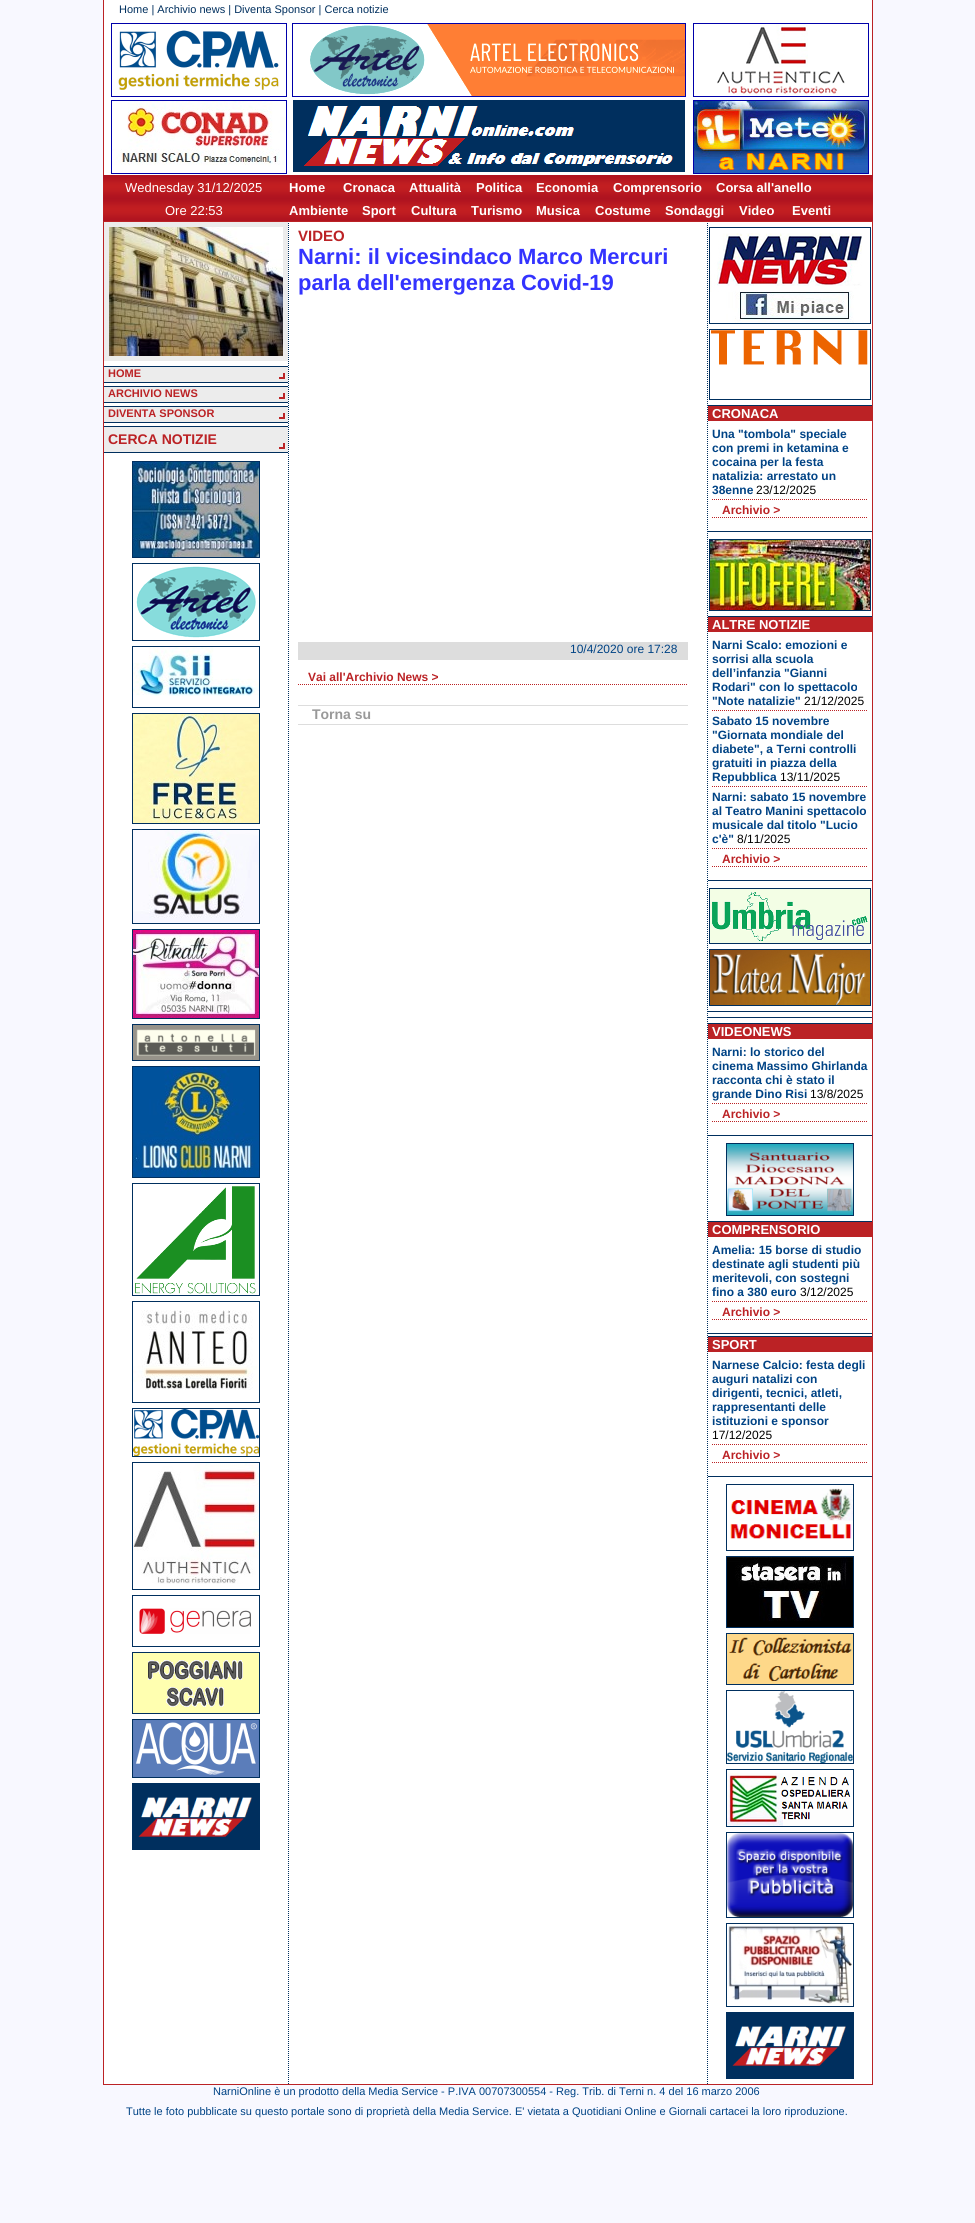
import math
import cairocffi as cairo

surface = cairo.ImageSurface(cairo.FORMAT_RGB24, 975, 2223)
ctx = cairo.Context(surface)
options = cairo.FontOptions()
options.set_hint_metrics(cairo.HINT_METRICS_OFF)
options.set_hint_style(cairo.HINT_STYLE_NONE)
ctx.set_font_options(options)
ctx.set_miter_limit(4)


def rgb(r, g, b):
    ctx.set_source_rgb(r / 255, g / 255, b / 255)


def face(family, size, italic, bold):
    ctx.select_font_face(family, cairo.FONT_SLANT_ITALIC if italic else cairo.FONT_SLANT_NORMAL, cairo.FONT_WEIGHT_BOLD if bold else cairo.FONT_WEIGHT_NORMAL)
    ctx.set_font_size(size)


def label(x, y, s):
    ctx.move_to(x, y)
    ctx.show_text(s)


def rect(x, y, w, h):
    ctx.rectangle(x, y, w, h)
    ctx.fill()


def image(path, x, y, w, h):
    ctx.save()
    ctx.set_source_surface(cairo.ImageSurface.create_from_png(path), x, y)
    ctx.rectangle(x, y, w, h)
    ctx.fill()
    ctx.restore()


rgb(248, 248, 255)
ctx.paint()
rgb(255, 255, 255)
rect(104, 0, 768, 175)
rgb(187, 34, 37)
rect(872, 0, 1, 175)
rect(103, 0, 1, 175)
face('Liberation Sans', 11, 0, 0)
rgb(0, 47, 94)
label(119, 13, 'Home | Archivio news | Diventa Sponsor | Cerca notizie')
image('image0.png', 111, 23, 756, 149)
ctx.rectangle(111.5, 23.5, 175, 73)
rgb(0, 0, 170)
ctx.set_line_width(1)
ctx.stroke()
image('image1.png', 112, 24, 174, 72)
ctx.rectangle(292.5, 23.5, 393, 73)
ctx.stroke()
image('image2.png', 293, 24, 392, 72)
ctx.rectangle(693.5, 23.5, 175, 73)
ctx.stroke()
image('image3.png', 694, 24, 174, 72)
ctx.rectangle(111.5, 100.5, 175, 73)
ctx.stroke()
image('image4.png', 112, 101, 174, 72)
ctx.rectangle(693.5, 100.5, 175, 73)
ctx.stroke()
image('image5.png', 694, 101, 174, 72)
image('image6.png', 103, 175, 770, 23)
face('Liberation Sans', 13, 0, 0)
rgb(255, 255, 255)
label(125, 192, 'Wednesday 31/12/2025')
face('Liberation Sans', 13, 0, 1)
label(289, 192, 'Home')
label(343, 192, 'Cronaca')
label(409, 192, 'Attualità')
label(476, 192, 'Politica')
label(536, 192, 'Economia')
label(613, 192, 'Comprensorio')
label(716, 192, 'Corsa all\'anello')
image('image6.png', 103, 198, 770, 23)
face('Liberation Sans', 13, 0, 0)
label(165, 215, 'Ore 22:53')
face('Liberation Sans', 13, 0, 1)
label(289, 215, 'Ambiente')
label(362, 215, 'Sport')
label(411, 215, 'Cultura')
label(471, 215, 'Turismo')
label(536, 215, 'Musica')
label(595, 215, 'Costume')
label(665, 215, 'Sondaggi')
label(739, 215, 'Video')
label(792, 215, 'Eventi')
image('image7.png', 104, 222, 768, 1862)
ctx.rectangle(103.5, 221.5, 769, 1863)
rgb(187, 34, 37)
ctx.stroke()
rgb(236, 236, 236)
rect(104, 222, 184, 139)
image('image8.png', 109, 227, 174, 129)
rect(104, 367, 184, 15)
image('image9.png', 279, 373, 6, 6)
rgb(0, 47, 94)
rect(104, 366, 184, 1)
rect(104, 382, 184, 1)
face('Liberation Sans', 11, 0, 1)
rgb(187, 34, 37)
label(108, 377, 'HOME')
rgb(236, 236, 236)
rect(104, 387, 184, 15)
image('image9.png', 279, 393, 6, 6)
rgb(0, 47, 94)
rect(104, 386, 184, 1)
rect(104, 402, 184, 1)
rgb(187, 34, 37)
label(108, 397, 'ARCHIVIO NEWS')
rgb(236, 236, 236)
rect(104, 407, 184, 15)
image('image9.png', 279, 413, 6, 6)
rgb(0, 47, 94)
rect(104, 406, 184, 1)
rect(104, 422, 184, 1)
rgb(187, 34, 37)
label(108, 417, 'DIVENTA SPONSOR')
rgb(236, 236, 236)
rect(104, 427, 184, 25)
image('image9.png', 279, 443, 6, 6)
rgb(0, 47, 94)
rect(104, 426, 184, 1)
rect(104, 452, 184, 1)
face('Liberation Sans', 14, 0, 1)
rgb(187, 34, 37)
label(108, 444, 'CERCA NOTIZIE')
ctx.rectangle(132.5, 461.5, 127, 96)
rgb(0, 47, 94)
ctx.stroke()
image('image10.png', 133, 462, 126, 95)
ctx.rectangle(132.5, 563.5, 127, 77)
ctx.stroke()
image('image11.png', 133, 566, 123, 74)
ctx.rectangle(132.5, 646.5, 127, 61)
ctx.stroke()
image('image12.png', 133, 647, 126, 49)
ctx.rectangle(132.5, 713.5, 127, 110)
ctx.stroke()
image('image13.png', 133, 714, 126, 109)
ctx.rectangle(132.5, 829.5, 127, 94)
ctx.stroke()
image('image14.png', 133, 830, 126, 93)
ctx.rectangle(132.5, 929.5, 127, 89)
ctx.stroke()
image('image15.png', 133, 930, 126, 88)
ctx.rectangle(132.5, 1024.5, 127, 36)
ctx.stroke()
image('image16.png', 133, 1025, 126, 35)
ctx.rectangle(132.5, 1066.5, 127, 111)
ctx.stroke()
image('image17.png', 133, 1067, 126, 110)
ctx.rectangle(132.5, 1183.5, 127, 112)
ctx.stroke()
image('image18.png', 135, 1186, 121, 108)
ctx.rectangle(132.5, 1301.5, 127, 101)
ctx.stroke()
image('image19.png', 133, 1310, 124, 80)
ctx.rectangle(132.5, 1408.5, 127, 48)
ctx.stroke()
image('image20.png', 133, 1409, 126, 47)
ctx.rectangle(132.5, 1462.5, 127, 127)
ctx.stroke()
image('image21.png', 133, 1463, 126, 121)
ctx.rectangle(132.5, 1595.5, 127, 51)
ctx.stroke()
image('image22.png', 139, 1608, 112, 26)
ctx.rectangle(132.5, 1652.5, 127, 61)
ctx.stroke()
image('image23.png', 133, 1653, 126, 60)
ctx.rectangle(132.5, 1719.5, 127, 58)
ctx.stroke()
image('image24.png', 133, 1720, 126, 57)
ctx.rectangle(132.5, 1783.5, 127, 66)
ctx.stroke()
image('image25.png', 133, 1784, 126, 65)
face('Liberation Sans', 15, 0, 1)
rgb(187, 34, 37)
label(298, 241, 'VIDEO')
face('Liberation Sans', 22, 0, 1)
rgb(51, 51, 255)
label(298, 264, 'Narni: il vicesindaco Marco Mercuri')
label(298, 290, 'parla dell\'emergenza Covid-19')
rgb(221, 221, 221)
rect(298, 642, 390, 18)
face('Liberation Sans', 12, 0, 0)
rgb(0, 67, 133)
label(570, 653, '10/4/2020 ore 17:28')
ctx.new_path()
ctx.move_to(298, 684.5)
ctx.line_to(688, 684.5)
rgb(187, 34, 37)
ctx.set_dash([1, 1])
ctx.stroke()
face('Liberation Sans', 12, 0, 1)
label(308, 681, 'Vai all\'Archivio News >')
rgb(221, 221, 221)
rect(298, 705, 390, 1)
rect(298, 724, 390, 1)
face('Liberation Sans', 14, 0, 1)
rgb(153, 153, 153)
label(312, 719, 'Torna su')
ctx.rectangle(709.5, 227.5, 161, 96)
rgb(0, 47, 94)
ctx.set_dash([])
ctx.stroke()
image('image26.png', 710, 233, 152, 90)
ctx.rectangle(709.5, 329.5, 161, 70)
ctx.stroke()
image('image27.png', 711, 330, 157, 35)
rect(708, 405, 164, 1)
rect(708, 531, 164, 1)
rgb(187, 34, 37)
rect(708, 406, 164, 15)
face('Liberation Sans', 13, 0, 1)
rgb(255, 255, 255)
label(712, 418, 'CRONACA')
ctx.new_path()
ctx.move_to(712, 499.5)
ctx.line_to(868, 499.5)
rgb(187, 34, 37)
ctx.set_dash([1, 1])
ctx.stroke()
face('Liberation Sans', 12, 0, 1)
rgb(0, 67, 133)
label(712, 438, 'Una "tombola" speciale')
label(712, 452, 'con premi in ketamina e')
label(712, 466, 'cocaina per la festa')
label(712, 480, 'natalizia: arrestato un')
label(712, 494, '38enne')
face('Liberation Sans', 12, 0, 0)
rgb(0, 0, 0)
label(756, 494, '23/12/2025')
ctx.new_path()
ctx.move_to(712, 517.5)
ctx.line_to(868, 517.5)
rgb(187, 34, 37)
ctx.stroke()
face('Liberation Sans', 12, 0, 1)
label(722, 514, 'Archivio >')
ctx.rectangle(709.5, 539.5, 161, 71)
rgb(0, 47, 94)
ctx.set_dash([])
ctx.stroke()
image('image28.png', 710, 540, 160, 70)
rect(708, 616, 164, 1)
rect(708, 880, 164, 1)
rgb(187, 34, 37)
rect(708, 617, 164, 15)
face('Liberation Sans', 13, 0, 1)
rgb(255, 255, 255)
label(712, 629, 'ALTRE NOTIZIE')
ctx.new_path()
ctx.move_to(712, 710.5)
ctx.line_to(868, 710.5)
rgb(187, 34, 37)
ctx.set_dash([1, 1])
ctx.stroke()
face('Liberation Sans', 12, 0, 1)
rgb(0, 67, 133)
label(712, 649, 'Narni Scalo: emozioni e')
label(712, 663, 'sorrisi alla scuola')
label(712, 677, 'dell’infanzia "Gianni')
label(712, 691, 'Rodari" con lo spettacolo')
label(712, 705, '"Note natalizie"')
face('Liberation Sans', 12, 0, 0)
rgb(0, 0, 0)
label(804, 705, '21/12/2025')
ctx.new_path()
ctx.move_to(712, 786.5)
ctx.line_to(868, 786.5)
rgb(187, 34, 37)
ctx.stroke()
face('Liberation Sans', 12, 0, 1)
rgb(0, 67, 133)
label(712, 725, 'Sabato 15 novembre')
label(712, 739, '"Giornata mondiale del')
label(712, 753, 'diabete", a Terni controlli')
label(712, 767, 'gratuiti in piazza della')
label(712, 781, 'Repubblica')
face('Liberation Sans', 12, 0, 0)
rgb(0, 0, 0)
label(780, 781, '13/11/2025')
ctx.new_path()
ctx.move_to(712, 848.5)
ctx.line_to(868, 848.5)
rgb(187, 34, 37)
ctx.stroke()
face('Liberation Sans', 12, 0, 1)
rgb(0, 67, 133)
label(712, 801, 'Narni: sabato 15 novembre')
label(712, 815, 'al Teatro Manini spettacolo')
label(712, 829, 'musicale dal titolo "Lucio')
label(712, 843, 'c\'è"')
face('Liberation Sans', 12, 0, 0)
rgb(0, 0, 0)
label(737, 843, '8/11/2025')
ctx.new_path()
ctx.move_to(712, 866.5)
ctx.line_to(868, 866.5)
rgb(187, 34, 37)
ctx.stroke()
face('Liberation Sans', 12, 0, 1)
label(722, 863, 'Archivio >')
ctx.rectangle(709.5, 888.5, 161, 55)
rgb(0, 47, 94)
ctx.set_dash([])
ctx.stroke()
image('image29.png', 710, 889, 160, 54)
ctx.rectangle(709.5, 949.5, 161, 56)
ctx.stroke()
image('image30.png', 710, 950, 160, 55)
rect(708, 1011, 164, 1)
rect(708, 1017, 164, 1)
rect(708, 1023, 164, 1)
rect(708, 1135, 164, 1)
rgb(187, 34, 37)
rect(708, 1024, 164, 15)
face('Liberation Sans', 13, 0, 1)
rgb(255, 255, 255)
label(712, 1036, 'VIDEONEWS')
ctx.new_path()
ctx.move_to(712, 1103.5)
ctx.line_to(868, 1103.5)
rgb(187, 34, 37)
ctx.set_dash([1, 1])
ctx.stroke()
face('Liberation Sans', 12, 0, 1)
rgb(0, 67, 133)
label(712, 1056, 'Narni: lo storico del')
label(712, 1070, 'cinema Massimo Ghirlanda')
label(712, 1084, 'racconta chi è stato il')
label(712, 1098, 'grande Dino Risi')
face('Liberation Sans', 12, 0, 0)
rgb(0, 0, 0)
label(810, 1098, '13/8/2025')
ctx.new_path()
ctx.move_to(712, 1121.5)
ctx.line_to(868, 1121.5)
rgb(187, 34, 37)
ctx.stroke()
face('Liberation Sans', 12, 0, 1)
label(722, 1118, 'Archivio >')
ctx.rectangle(726.5, 1143.5, 127, 72)
rgb(0, 47, 94)
ctx.set_dash([])
ctx.stroke()
image('image31.png', 727, 1144, 126, 71)
rect(708, 1221, 164, 1)
rect(708, 1333, 164, 1)
rgb(187, 34, 37)
rect(708, 1222, 164, 15)
face('Liberation Sans', 13, 0, 1)
rgb(255, 255, 255)
label(712, 1234, 'COMPRENSORIO')
ctx.new_path()
ctx.move_to(712, 1301.5)
ctx.line_to(868, 1301.5)
rgb(187, 34, 37)
ctx.set_dash([1, 1])
ctx.stroke()
face('Liberation Sans', 12, 0, 1)
rgb(0, 67, 133)
label(712, 1254, 'Amelia: 15 borse di studio')
label(712, 1268, 'destinate agli studenti più')
label(712, 1282, 'meritevoli, con sostegni')
label(712, 1296, 'fino a 380 euro')
face('Liberation Sans', 12, 0, 0)
rgb(0, 0, 0)
label(800, 1296, '3/12/2025')
ctx.new_path()
ctx.move_to(712, 1319.5)
ctx.line_to(868, 1319.5)
rgb(187, 34, 37)
ctx.stroke()
face('Liberation Sans', 12, 0, 1)
label(722, 1316, 'Archivio >')
rgb(0, 47, 94)
rect(708, 1336, 164, 1)
rect(708, 1476, 164, 1)
rgb(187, 34, 37)
rect(708, 1337, 164, 15)
face('Liberation Sans', 13, 0, 1)
rgb(255, 255, 255)
label(712, 1349, 'SPORT')
ctx.new_path()
ctx.move_to(712, 1444.5)
ctx.line_to(868, 1444.5)
rgb(187, 34, 37)
ctx.stroke()
face('Liberation Sans', 12, 0, 1)
rgb(0, 67, 133)
label(712, 1369, 'Narnese Calcio: festa degli')
label(712, 1383, 'auguri natalizi con')
label(712, 1397, 'dirigenti, tecnici, atleti,')
label(712, 1411, 'rappresentanti delle')
label(712, 1425, 'istituzioni e sponsor')
face('Liberation Sans', 12, 0, 0)
rgb(0, 0, 0)
label(712, 1439, '17/12/2025')
ctx.new_path()
ctx.move_to(712, 1462.5)
ctx.line_to(868, 1462.5)
rgb(187, 34, 37)
ctx.stroke()
face('Liberation Sans', 12, 0, 1)
label(722, 1459, 'Archivio >')
ctx.rectangle(726.5, 1484.5, 127, 66)
rgb(0, 47, 94)
ctx.set_dash([])
ctx.stroke()
image('image32.png', 730, 1488, 123, 51)
ctx.rectangle(726.5, 1556.5, 127, 71)
ctx.stroke()
image('image33.png', 727, 1557, 126, 70)
ctx.rectangle(726.5, 1633.5, 127, 51)
ctx.stroke()
image('image34.png', 727, 1634, 126, 50)
ctx.rectangle(726.5, 1690.5, 127, 73)
ctx.stroke()
image('image35.png', 727, 1691, 126, 72)
ctx.rectangle(726.5, 1769.5, 127, 57)
ctx.stroke()
image('image36.png', 727, 1773, 124, 53)
ctx.rectangle(726.5, 1832.5, 127, 85)
ctx.stroke()
image('image37.png', 727, 1833, 126, 84)
ctx.rectangle(726.5, 1923.5, 127, 83)
ctx.stroke()
image('image38.png', 727, 1925, 126, 79)
ctx.rectangle(726.5, 2012.5, 127, 66)
ctx.stroke()
image('image25.png', 727, 2013, 126, 65)
face('Liberation Sans', 11, 0, 0)
rgb(0, 67, 133)
label(213, 2095, 'NarniOnline è un prodotto della Media Service - P.IVA 00707300554 - Reg. Trib. di Terni n. 4 del 16 marzo 2006')
label(126, 2115, 'Tutte le foto pubblicate su questo portale sono di proprietà della Media Service. E\' vietata a Quotidiani Online e Giornali cartacei la loro riproduzione.')
surface.write_to_png('render.png')
